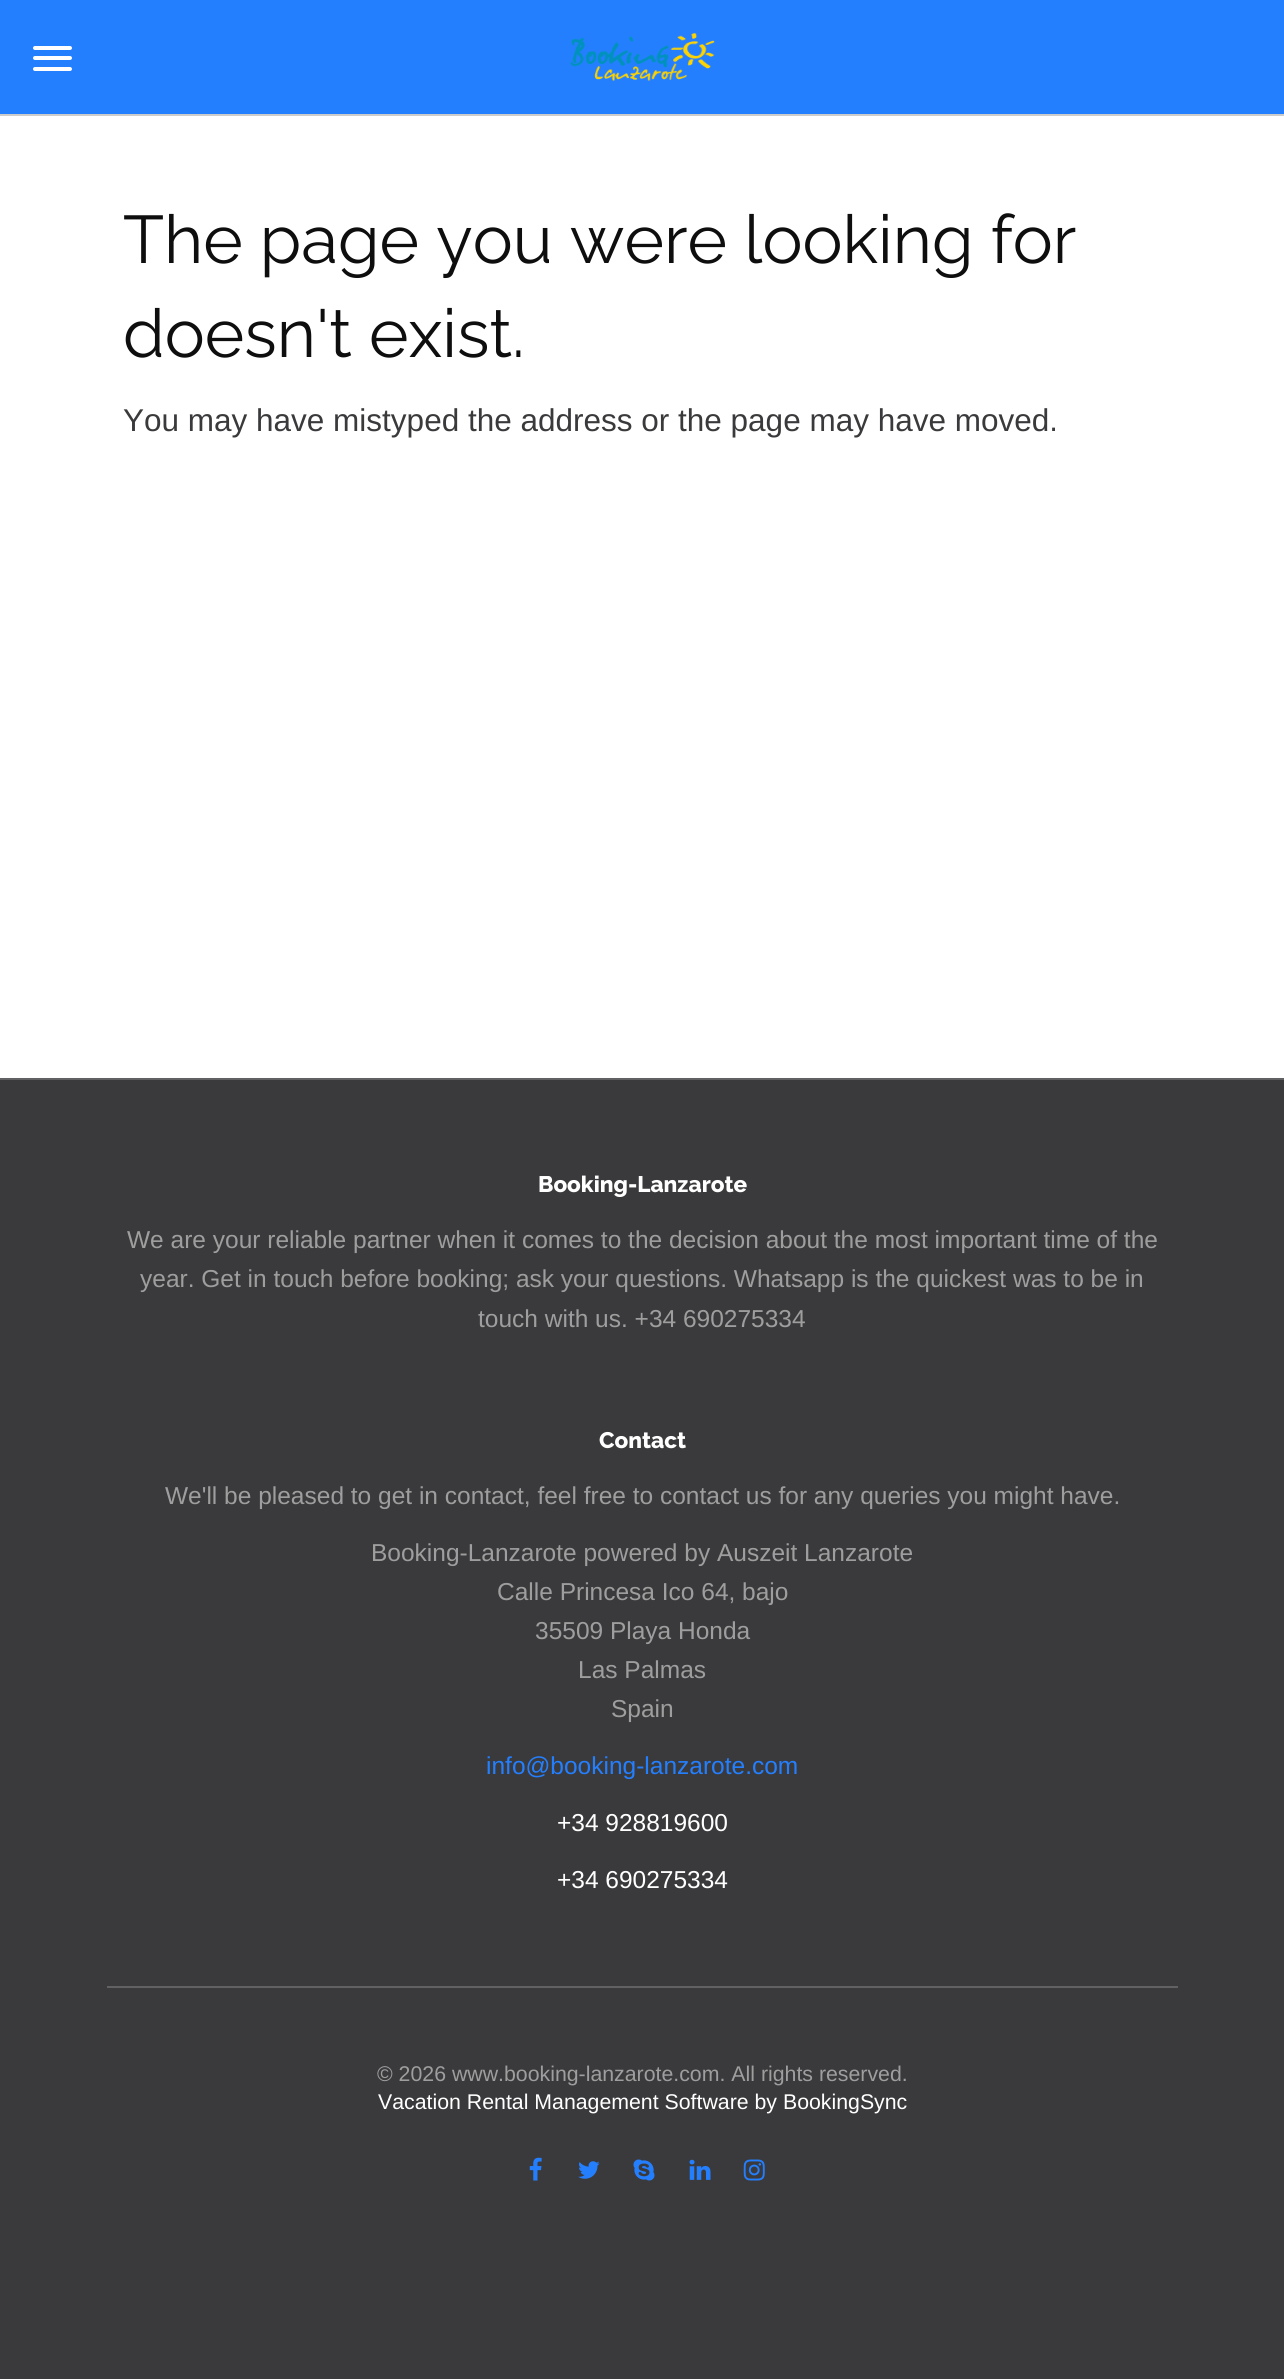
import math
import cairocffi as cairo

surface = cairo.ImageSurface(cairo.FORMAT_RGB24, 1284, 2379)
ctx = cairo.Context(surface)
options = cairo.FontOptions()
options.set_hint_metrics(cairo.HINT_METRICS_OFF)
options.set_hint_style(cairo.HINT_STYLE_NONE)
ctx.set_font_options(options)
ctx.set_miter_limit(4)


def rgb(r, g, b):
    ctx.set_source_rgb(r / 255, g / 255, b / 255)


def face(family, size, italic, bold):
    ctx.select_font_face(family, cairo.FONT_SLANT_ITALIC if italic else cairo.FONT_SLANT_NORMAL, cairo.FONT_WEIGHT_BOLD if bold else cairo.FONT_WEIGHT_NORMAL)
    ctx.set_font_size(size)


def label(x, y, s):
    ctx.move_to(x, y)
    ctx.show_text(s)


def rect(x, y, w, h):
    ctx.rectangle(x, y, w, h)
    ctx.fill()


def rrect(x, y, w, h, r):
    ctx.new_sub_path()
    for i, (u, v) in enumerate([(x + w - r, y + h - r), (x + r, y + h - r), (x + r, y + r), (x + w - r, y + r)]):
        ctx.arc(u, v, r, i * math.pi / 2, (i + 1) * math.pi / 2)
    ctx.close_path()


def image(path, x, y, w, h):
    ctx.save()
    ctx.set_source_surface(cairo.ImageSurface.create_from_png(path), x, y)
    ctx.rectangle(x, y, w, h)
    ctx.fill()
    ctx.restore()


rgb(255, 255, 255)
ctx.paint()
rgb(36, 127, 255)
rect(0, 0, 1284, 114)
rgb(255, 255, 255)
rrect(33, 46, 39, 4, 2)
ctx.fill()
rrect(33, 56, 39, 4, 2)
ctx.fill()
rrect(33, 67, 39, 4, 2)
ctx.fill()
image('image0.png', 570, 33, 145, 48)
rgb(204, 204, 204)
rect(0, 114, 1284, 2)
face('Raleway', 67.25, 0, 0)
rgb(14, 14, 14)
label(123, 263, 'The page you were looking for')
label(123, 357, 'doesn\'t exist.')
face('Liberation Sans', 31.5, 0, 0)
rgb(58, 58, 60)
label(123, 431, 'You may have mistyped the address or the page may have moved.')
rect(0, 1080, 1284, 1299)
rgb(97, 97, 99)
rect(0, 1078, 1284, 2)
face('Raleway ExtraBold', 22.5, 0, 0)
rgb(255, 255, 255)
label(538, 1192, 'Booking-Lanzarote')
face('Liberation Sans', 24.5, 0, 0)
rgb(158, 158, 158)
label(127, 1248, 'We are your reliable partner when it comes to the decision about the most important time of the')
label(140, 1287, 'year. Get in touch before booking; ask your questions. Whatsapp is the quickest was to be in')
label(478, 1327, 'touch with us. +34 690275334')
face('Raleway ExtraBold', 22.5, 0, 0)
rgb(255, 255, 255)
label(599, 1448, 'Contact')
face('Liberation Sans', 24.5, 0, 0)
rgb(158, 158, 158)
label(165, 1504, 'We\'ll be pleased to get in contact, feel free to contact us for any queries you might have.')
label(371, 1561, 'Booking-Lanzarote powered by Auszeit Lanzarote')
label(497, 1600, 'Calle Princesa Ico 64, bajo')
label(535, 1639, '35509 Playa Honda')
label(578, 1678, 'Las Palmas')
label(611, 1717, 'Spain')
rgb(36, 127, 255)
label(486, 1774, 'info@booking-lanzarote.com')
rgb(255, 255, 255)
label(557, 1831, '+34 928819600')
label(557, 1888, '+34 690275334')
rgb(97, 97, 99)
rect(107, 1986, 1071, 2)
face('Liberation Sans', 21.3, 0, 0)
rgb(158, 158, 158)
label(377, 2081, '© 2026 www.booking-lanzarote.com. All rights reserved.')
rgb(255, 255, 255)
label(378, 2109, 'Vacation Rental Management Software by BookingSync')
image('image1.png', 529, 2157, 13, 24)
image('image2.png', 578, 2161, 22, 18)
image('image3.png', 633, 2159, 22, 22)
image('image4.png', 689, 2159, 22, 21)
image('image5.png', 743, 2159, 22, 22)
surface.write_to_png('render.png')
